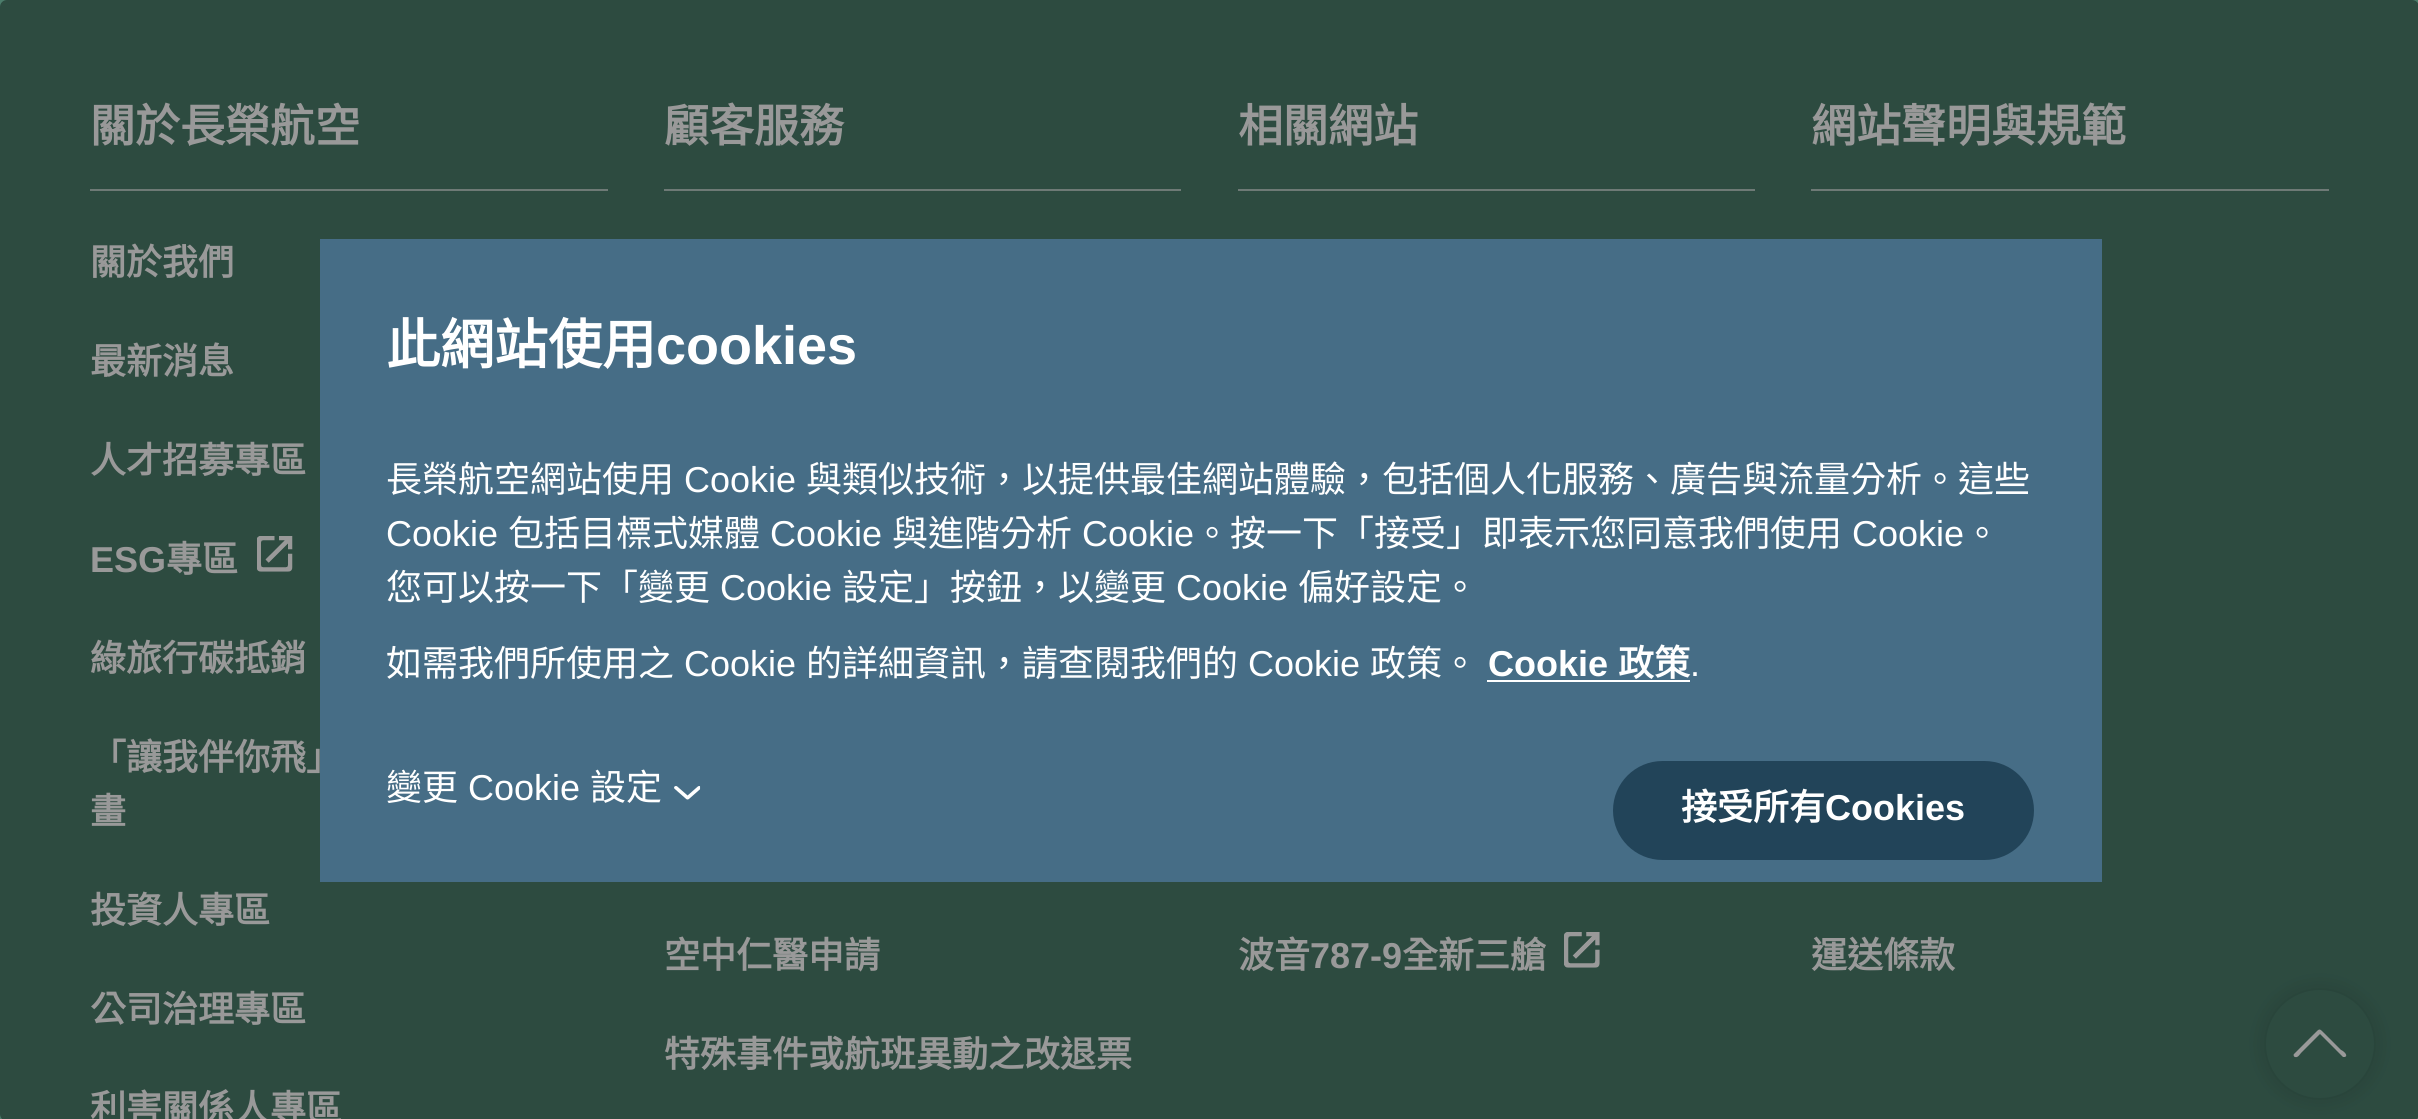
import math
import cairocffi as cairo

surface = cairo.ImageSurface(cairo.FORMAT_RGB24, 2418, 1119)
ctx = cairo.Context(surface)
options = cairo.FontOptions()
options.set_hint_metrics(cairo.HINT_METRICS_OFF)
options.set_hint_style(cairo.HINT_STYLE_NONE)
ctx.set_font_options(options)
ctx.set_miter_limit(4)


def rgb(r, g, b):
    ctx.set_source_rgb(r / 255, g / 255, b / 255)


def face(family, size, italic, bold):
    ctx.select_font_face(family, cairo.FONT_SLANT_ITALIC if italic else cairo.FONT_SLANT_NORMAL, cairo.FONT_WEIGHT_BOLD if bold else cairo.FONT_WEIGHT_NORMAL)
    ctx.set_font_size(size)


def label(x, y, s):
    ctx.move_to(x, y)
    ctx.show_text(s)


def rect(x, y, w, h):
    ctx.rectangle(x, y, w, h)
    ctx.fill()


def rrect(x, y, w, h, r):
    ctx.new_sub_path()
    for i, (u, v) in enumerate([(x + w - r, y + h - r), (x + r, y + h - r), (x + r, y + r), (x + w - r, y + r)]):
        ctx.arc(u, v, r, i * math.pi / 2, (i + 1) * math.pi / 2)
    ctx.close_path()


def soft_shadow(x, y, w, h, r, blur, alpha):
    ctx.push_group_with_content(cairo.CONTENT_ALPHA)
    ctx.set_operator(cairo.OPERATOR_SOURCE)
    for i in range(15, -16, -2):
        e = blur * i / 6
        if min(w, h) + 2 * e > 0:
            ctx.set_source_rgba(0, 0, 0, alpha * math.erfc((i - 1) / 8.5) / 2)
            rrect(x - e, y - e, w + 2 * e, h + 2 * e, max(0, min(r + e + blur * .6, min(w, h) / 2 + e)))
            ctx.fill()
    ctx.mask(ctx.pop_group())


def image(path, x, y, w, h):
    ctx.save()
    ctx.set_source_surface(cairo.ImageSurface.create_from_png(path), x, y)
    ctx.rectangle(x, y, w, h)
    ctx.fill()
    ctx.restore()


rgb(255, 255, 255)
ctx.paint()
rgb(75, 125, 107)
ctx.new_path()
ctx.move_to(1210, -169)
ctx.curve_to(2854, -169, 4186, 162, 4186, 569)
ctx.line_to(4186, 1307)
ctx.line_to(-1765, 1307)
ctx.line_to(-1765, 569)
ctx.curve_to(-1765, 162, -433, -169, 1210, -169)
ctx.close_path()
ctx.fill()
rgb(183, 203, 196)
rect(90, 189, 518, 2)
face('Noto Sans CJK TC', 45, 0, 1)
rgb(255, 255, 255)
label(90, 142, '關於長榮航空')
face('Noto Sans CJK TC', 36, 0, 1)
label(90, 275, '關於我們')
label(90, 374, '最新消息')
label(90, 473, '人才招募專區')
face('Liberation Sans', 36, 0, 1)
label(90, 572, 'ESG')
face('Noto Sans CJK TC', 36, 0, 1)
label(166, 572, '專區')
image('image0.png', 257, 536, 36, 36)
label(90, 671, '綠旅行碳抵銷')
label(90, 770, '「讓我伴你飛」')
label(90, 824, '畫')
label(90, 923, '投資人專區')
label(90, 1022, '公司治理專區')
label(90, 1121, '利害關係人專區')
rgb(183, 203, 196)
rect(664, 189, 517, 2)
face('Noto Sans CJK TC', 45, 0, 1)
rgb(255, 255, 255)
label(664, 142, '顧客服務')
face('Noto Sans CJK TC', 36, 0, 1)
label(664, 968, '空中仁醫申請')
label(664, 1067, '特殊事件或航班異動之改退票')
rgb(183, 203, 196)
rect(1238, 189, 517, 2)
face('Noto Sans CJK TC', 45, 0, 1)
rgb(255, 255, 255)
label(1238, 142, '相關網站')
face('Noto Sans CJK TC', 36, 0, 1)
label(1238, 968, '波音')
face('Liberation Sans', 36, 0, 1)
label(1310, 968, '787-9')
face('Noto Sans CJK TC', 36, 0, 1)
label(1402, 968, '全新三艙')
image('image1.png', 1564, 932, 36, 36)
rgb(183, 203, 196)
rect(1811, 189, 518, 2)
face('Noto Sans CJK TC', 45, 0, 1)
rgb(255, 255, 255)
label(1811, 142, '網站聲明與規範')
face('Noto Sans CJK TC', 36, 0, 1)
label(1811, 968, '運送條款')
rgb(0, 0, 0)
soft_shadow(2266, 990, 108, 108, 54, 11, 0.16)
rgb(75, 125, 107)
ctx.arc(2320, 1044, 54, 0, 2 * math.pi)
ctx.fill()
rgb(255, 255, 255)
ctx.new_path()
ctx.move_to(2294, 1054)
ctx.line_to(2314, 1034)
ctx.curve_to(2320, 1028, 2319, 1028, 2325, 1034)
ctx.line_to(2341, 1050)
ctx.curve_to(2342, 1050, 2349, 1055, 2345, 1057)
ctx.line_to(2343, 1057)
ctx.line_to(2320, 1034)
ctx.line_to(2301, 1053)
ctx.curve_to(2300, 1054, 2298, 1058, 2295, 1057)
ctx.curve_to(2294, 1057, 2293, 1055, 2294, 1054)
ctx.close_path()
ctx.fill()
ctx.set_source_rgba(0, 0, 0, 0.4)
rrect(0, 0, 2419, 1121, 7)
ctx.fill()
rgb(70, 109, 134)
rect(320, 239, 1782, 643)
face('Noto Sans CJK TC', 54, 0, 1)
rgb(255, 255, 255)
label(386, 364, '此網站使用')
face('Liberation Sans', 54, 0, 1)
label(656, 364, 'cookies')
face('Noto Sans CJK TC', 36, 0, 0)
label(386, 492, '長榮航空網站使用')
face('Liberation Sans', 36, 0, 0)
label(684, 492, 'Cookie')
face('Noto Sans CJK TC', 36, 0, 0)
label(806, 492, '與類似技術，以提供最佳網站體驗，包括個人化服務、廣告與流量分析。這些')
face('Liberation Sans', 36, 0, 0)
label(386, 546, 'Cookie')
face('Noto Sans CJK TC', 36, 0, 0)
label(508, 546, '包括目標式媒體')
face('Liberation Sans', 36, 0, 0)
label(770, 546, 'Cookie')
face('Noto Sans CJK TC', 36, 0, 0)
label(892, 546, '與進階分析')
face('Liberation Sans', 36, 0, 0)
label(1082, 546, 'Cookie')
face('Noto Sans CJK TC', 36, 0, 0)
label(1194, 546, '。按一下「接受」即表示您同意我們使用')
face('Liberation Sans', 36, 0, 0)
label(1852, 546, 'Cookie')
face('Noto Sans CJK TC', 36, 0, 0)
label(1964, 546, '。')
label(386, 600, '您可以按一下「變更')
face('Liberation Sans', 36, 0, 0)
label(720, 600, 'Cookie')
face('Noto Sans CJK TC', 36, 0, 0)
label(842, 600, '設定」按鈕，以變更')
face('Liberation Sans', 36, 0, 0)
label(1176, 600, 'Cookie')
face('Noto Sans CJK TC', 36, 0, 0)
label(1298, 600, '偏好設定。')
label(386, 676, '如需我們所使用之')
face('Liberation Sans', 36, 0, 0)
label(684, 676, 'Cookie')
face('Noto Sans CJK TC', 36, 0, 0)
label(806, 676, '的詳細資訊，請查閱我們的')
face('Liberation Sans', 36, 0, 0)
label(1248, 676, 'Cookie')
face('Noto Sans CJK TC', 36, 0, 0)
label(1370, 676, '政策。')
face('Liberation Sans', 36, 0, 1)
label(1488, 676, 'Cookie')
rect(1487, 680, 203, 2)
face('Noto Sans CJK TC', 36, 0, 1)
label(1618, 676, '政策')
face('Liberation Sans', 36, 0, 0)
label(1690, 676, '.')
face('Noto Sans CJK TC', 36, 0, 0)
label(386, 800, '變更')
face('Liberation Sans', 36, 0, 0)
label(468, 800, 'Cookie')
face('Noto Sans CJK TC', 36, 0, 0)
label(590, 800, '設定')
image('image2.png', 674, 786, 27, 14)
rgb(34, 68, 89)
rrect(1613, 761, 421, 99, 49.5)
ctx.fill()
face('Noto Sans CJK TC', 36, 0, 1)
rgb(255, 255, 255)
label(1681, 820, '接受所有')
face('Liberation Sans', 36, 0, 1)
label(1825, 820, 'Cookies')
surface.write_to_png('render.png')
